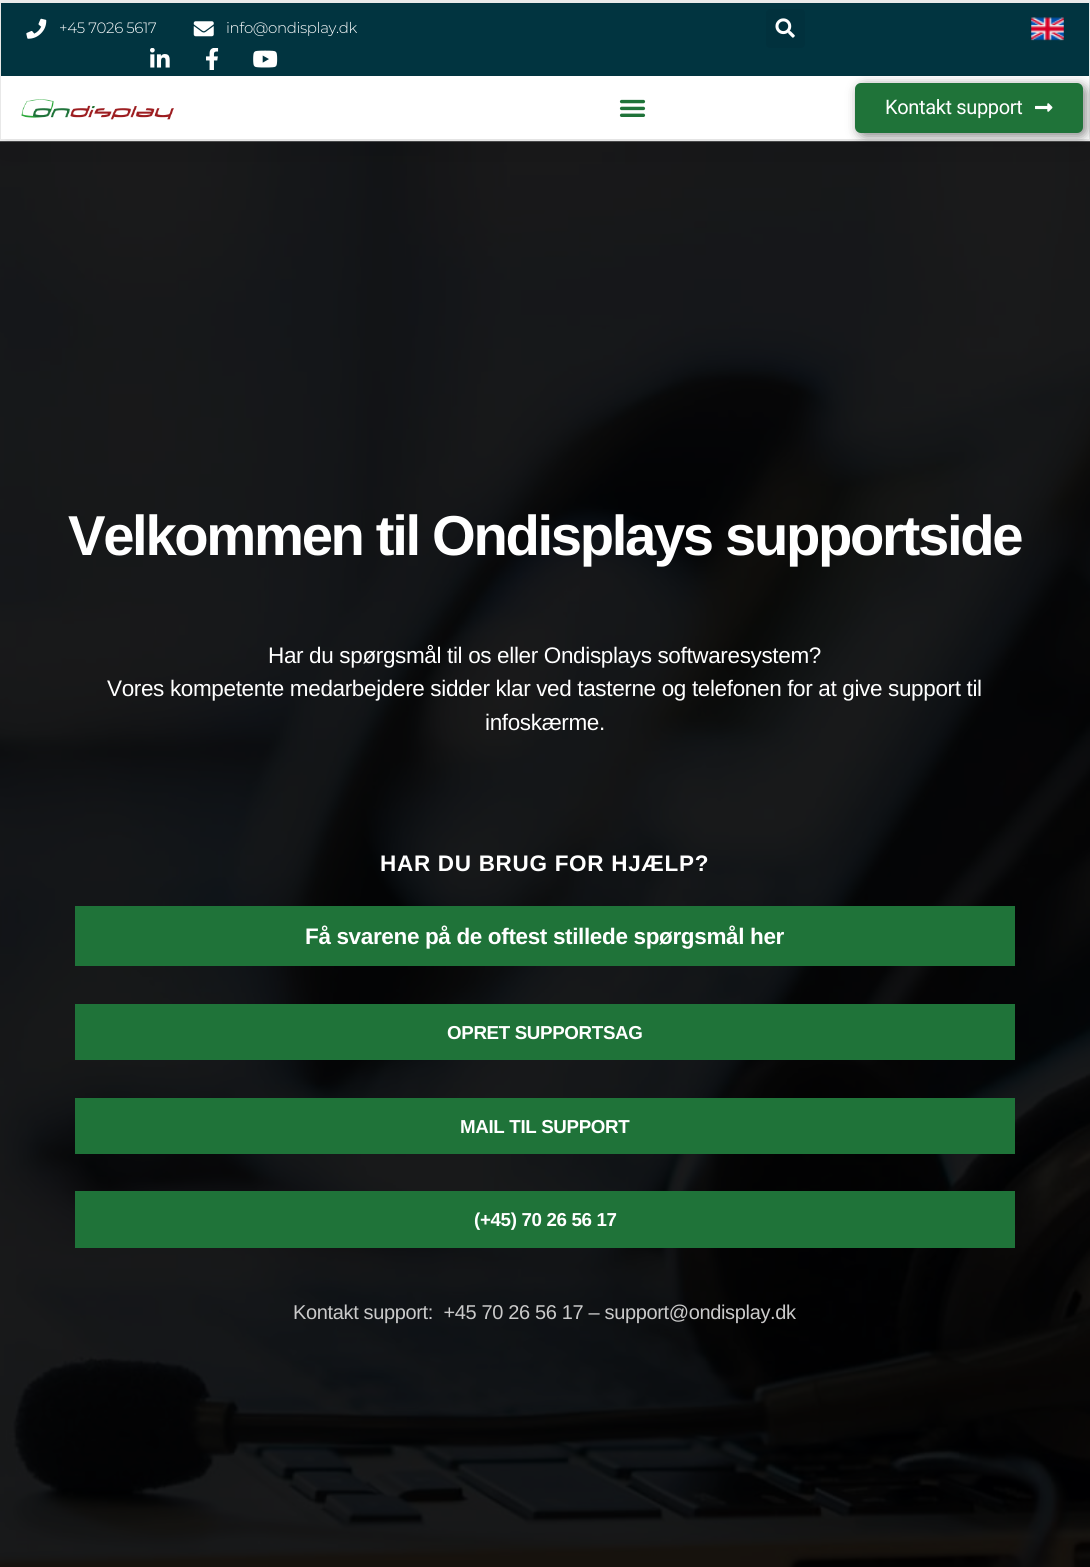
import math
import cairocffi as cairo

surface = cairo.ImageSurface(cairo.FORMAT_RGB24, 1090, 1567)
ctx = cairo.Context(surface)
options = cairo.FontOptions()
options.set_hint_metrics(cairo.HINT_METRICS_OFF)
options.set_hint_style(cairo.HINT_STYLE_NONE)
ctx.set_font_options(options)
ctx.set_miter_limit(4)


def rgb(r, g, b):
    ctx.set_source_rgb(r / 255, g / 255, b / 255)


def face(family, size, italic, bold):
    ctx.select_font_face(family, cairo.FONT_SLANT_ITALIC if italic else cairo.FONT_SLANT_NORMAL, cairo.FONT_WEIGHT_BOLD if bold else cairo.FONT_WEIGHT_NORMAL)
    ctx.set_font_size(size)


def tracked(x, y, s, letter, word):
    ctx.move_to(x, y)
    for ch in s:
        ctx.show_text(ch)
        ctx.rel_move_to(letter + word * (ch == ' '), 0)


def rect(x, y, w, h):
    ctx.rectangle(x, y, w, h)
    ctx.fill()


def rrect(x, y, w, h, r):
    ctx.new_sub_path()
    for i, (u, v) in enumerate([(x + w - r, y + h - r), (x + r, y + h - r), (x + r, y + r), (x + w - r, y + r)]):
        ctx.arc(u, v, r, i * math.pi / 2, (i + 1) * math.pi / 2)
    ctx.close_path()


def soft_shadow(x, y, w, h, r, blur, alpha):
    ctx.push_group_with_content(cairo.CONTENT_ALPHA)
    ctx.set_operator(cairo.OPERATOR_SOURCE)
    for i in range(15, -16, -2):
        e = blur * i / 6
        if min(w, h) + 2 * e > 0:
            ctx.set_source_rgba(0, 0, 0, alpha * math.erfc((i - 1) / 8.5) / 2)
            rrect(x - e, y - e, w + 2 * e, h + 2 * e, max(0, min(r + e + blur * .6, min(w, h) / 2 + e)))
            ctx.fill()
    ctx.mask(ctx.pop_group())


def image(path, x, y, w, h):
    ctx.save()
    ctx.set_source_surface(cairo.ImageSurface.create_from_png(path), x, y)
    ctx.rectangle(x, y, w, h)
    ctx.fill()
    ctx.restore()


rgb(243, 243, 243)
ctx.paint()
image('image10.png', 0, 141, 1090, 1426)
rgb(0, 0, 0)
soft_shadow(0, 8, 1090, 138, 0, 19, 0.1)
rgb(1, 52, 64)
rect(1, 3, 1088, 73)
image('image0.png', 26, 18, 21, 21)
face('Montserrat Light', 15, 0, 0)
rgb(255, 255, 255)
tracked(59, 33, '+45 7026 5617', -0.35, 0)
image('image1.png', 193, 21, 21, 16)
tracked(226, 33, 'info@ondisplay.dk', -0.35, 0)
rgb(1, 49, 61)
rrect(766, 9, 39, 39, 4)
ctx.fill()
image('image2.png', 775, 18, 20, 20)
image('image3.png', 1031, 17, 33, 24)
image('image4.png', 150, 48, 20, 20)
image('image5.png', 206, 48, 13, 22)
image('image6.png', 253, 50, 25, 18)
rgb(255, 255, 255)
rect(1, 76, 1088, 63)
image('image7.png', 21, 99, 153, 21)
image('image8.png', 619, 99, 27, 18)
rgb(0, 0, 0)
soft_shadow(859, 86, 227, 50, 6, 6, 0.5)
rgb(31, 115, 57)
rrect(855, 83, 228, 50, 6)
ctx.fill()
face('Roboto', 20, 0, 0)
rgb(255, 255, 255)
tracked(885, 114, 'Kontakt support', -0.35, 0)
image('image9.png', 1035, 103, 18, 9)
face('Liberation Sans', 56.25, 0, 1)
tracked(68, 555, 'Velkommen til Ondisplays supportside', -2.35, 0)
face('Liberation Sans', 22.5, 0, 0)
tracked(268, 663, 'Har du spørgsmål til os eller Ondisplays softwaresystem?', -0.35, 0)
tracked(107, 696, 'Vores kompetente medarbejdere sidder klar ved tasterne og telefonen for at give support til', -0.35, 0)
tracked(485, 730, 'infoskærme.', -0.35, 0)
face('Liberation Sans', 22.5, 0, 1)
tracked(380, 871, 'HAR DU BRUG FOR HJÆLP?', 0.7, 0)
rgb(31, 115, 57)
rect(75, 906, 940, 60)
rgb(255, 255, 255)
tracked(305, 944, 'Få svarene på de oftest stillede spørgsmål her', -0.35, 0)
rgb(31, 115, 57)
rect(75, 1004, 940, 56)
face('Liberation Sans', 18.75, 0, 1)
rgb(255, 255, 255)
tracked(447, 1039, 'OPRET SUPPORTSAG', -0.35, 0)
rgb(31, 115, 57)
rect(75, 1098, 940, 56)
rgb(255, 255, 255)
tracked(460, 1133, 'MAIL TIL SUPPORT', -0.35, 0)
rgb(31, 115, 57)
rect(75, 1191, 940, 57)
rgb(255, 255, 255)
tracked(474, 1226, '(+45) 70 26 56 17', -0.35, 0)
face('Liberation Sans', 20, 0, 0)
rgb(202, 202, 202)
tracked(293, 1319, 'Kontakt support:  +45 70 26 56 17 – support@ondisplay.dk', -0.35, 0)
surface.write_to_png('render.png')
